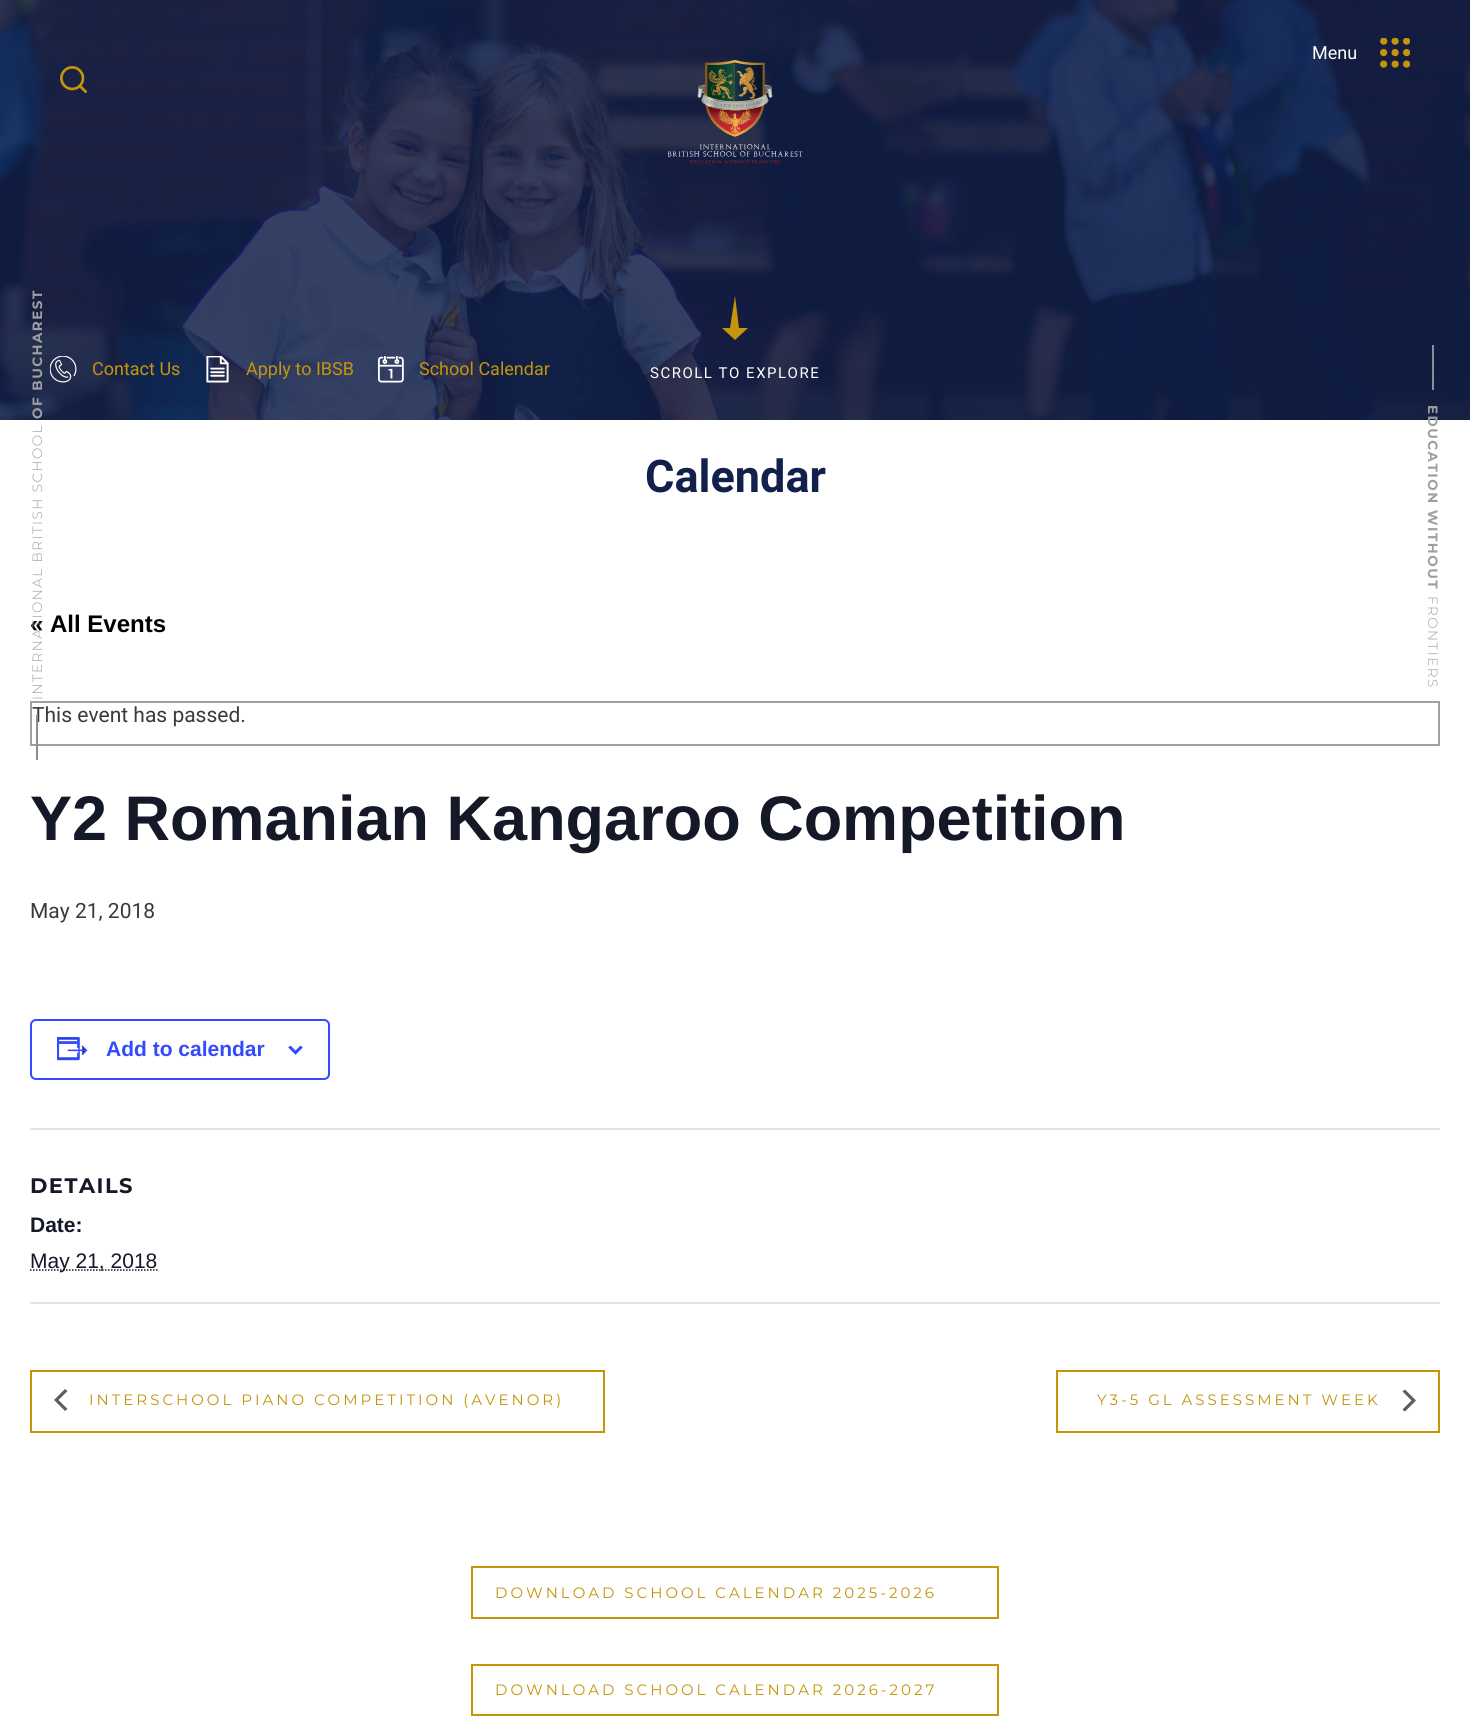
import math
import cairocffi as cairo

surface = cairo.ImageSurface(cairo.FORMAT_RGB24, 1470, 1734)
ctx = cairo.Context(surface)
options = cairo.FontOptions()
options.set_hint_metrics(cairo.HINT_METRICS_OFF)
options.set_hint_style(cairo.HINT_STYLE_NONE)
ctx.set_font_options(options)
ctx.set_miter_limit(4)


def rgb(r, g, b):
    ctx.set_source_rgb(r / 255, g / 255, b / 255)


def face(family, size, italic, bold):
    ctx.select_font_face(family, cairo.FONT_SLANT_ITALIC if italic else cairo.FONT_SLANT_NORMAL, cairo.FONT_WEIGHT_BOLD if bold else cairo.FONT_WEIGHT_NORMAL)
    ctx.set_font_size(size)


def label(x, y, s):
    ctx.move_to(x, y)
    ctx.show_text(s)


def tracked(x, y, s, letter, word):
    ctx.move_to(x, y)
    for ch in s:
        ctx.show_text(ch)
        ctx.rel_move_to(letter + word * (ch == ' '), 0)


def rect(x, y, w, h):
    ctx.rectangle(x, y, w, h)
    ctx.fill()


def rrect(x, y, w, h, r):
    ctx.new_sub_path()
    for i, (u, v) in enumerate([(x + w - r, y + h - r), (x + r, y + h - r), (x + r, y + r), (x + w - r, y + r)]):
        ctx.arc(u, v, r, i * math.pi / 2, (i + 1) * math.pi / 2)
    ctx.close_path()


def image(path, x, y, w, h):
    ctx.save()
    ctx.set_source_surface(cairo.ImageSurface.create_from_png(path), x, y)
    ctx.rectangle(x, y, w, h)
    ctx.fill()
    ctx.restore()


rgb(255, 255, 255)
ctx.paint()
image('image3.png', 0, 0, 1470, 420)
face('Roboto', 18, 0, 0)
rgb(255, 255, 255)
label(1312, 59, 'Menu')
image('image0.png', 1380, 38, 30, 30)
image('image1.png', 60, 66, 27, 27)
image('image2.png', 668, 60, 135, 104)
face('Montserrat', 13.5, 0, 1)
rgb(159, 159, 159)
ctx.save()
ctx.translate(42, 419)
ctx.rotate(-90 * math.pi / 180)
tracked(0, 0, 'OF BUCHAREST', 1.5, 0)
ctx.restore()
face('Liberation Sans', 24, 0, 1)
rgb(0, 0, 0)
label(30, 632, '« All Events')
face('Montserrat Light', 13.5, 0, 0)
rgb(159, 159, 159)
ctx.save()
ctx.translate(42, 700)
ctx.rotate(-90 * math.pi / 180)
tracked(0, 0, 'INTERNATIONAL BRITISH SCHOOL', 1.5, 0)
ctx.restore()
ctx.rectangle(31, 702, 1408, 43)
ctx.stroke()
face('Roboto', 21, 0, 0)
rgb(58, 58, 58)
label(32, 722, 'This event has passed.')
rgb(142, 142, 142)
rect(36, 715, 2, 45)
image('image4.png', 50, 356, 27, 27)
face('Roboto', 18, 0, 0)
rgb(196, 149, 11)
label(92, 375, 'Contact Us')
image('image5.png', 206, 356, 23, 27)
label(246, 375, 'Apply to IBSB')
image('image6.png', 378, 356, 26, 27)
label(419, 375, 'School Calendar')
rgb(196, 150, 12)
ctx.new_path()
ctx.move_to(730, 328)
ctx.line_to(722, 328)
ctx.line_to(735, 340)
ctx.line_to(748, 328)
ctx.line_to(739, 328)
ctx.line_to(735, 296)
ctx.close_path()
ctx.fill()
face('Roboto', 15, 0, 0)
rgb(255, 255, 255)
tracked(650, 378, 'SCROLL TO EXPLORE', 1.5, 0)
face('Roboto', 45, 0, 1)
rgb(18, 33, 75)
label(645, 492, 'Calendar')
rgb(142, 142, 142)
rect(1432, 345, 2, 45)
face('Montserrat', 13.5, 0, 1)
rgb(159, 159, 159)
ctx.save()
ctx.translate(1428, 405)
ctx.rotate(90 * math.pi / 180)
tracked(0, 0, 'EDUCATION WITHOUT', 1.5, 0)
ctx.restore()
face('Montserrat Light', 13.5, 0, 0)
ctx.save()
ctx.translate(1428, 596)
ctx.rotate(90 * math.pi / 180)
tracked(0, 0, 'FRONTIERS', 1.5, 0)
ctx.restore()
face('Liberation Sans', 63, 0, 1)
rgb(20, 24, 39)
label(30, 840, 'Y2 Romanian Kangaroo Competition')
face('Roboto', 21, 0, 0)
rgb(58, 58, 58)
label(30, 918, 'May 21, 2018')
rrect(31, 1020, 298, 59, 5)
rgb(51, 74, 255)
ctx.stroke()
image('image7.png', 57, 1037, 31, 24)
face('Liberation Sans', 21, 0, 1)
label(106, 1056, 'Add to calendar')
image('image8.png', 288, 1046, 15, 9)
rgb(228, 228, 228)
rect(30, 1128, 1410, 2)
face('Montserrat', 21, 0, 1)
rgb(20, 24, 39)
tracked(30, 1193, 'DETAILS', 1.5, 0)
face('Liberation Sans', 21, 0, 1)
label(30, 1232, 'Date:')
ctx.new_path()
ctx.move_to(30, 1270)
ctx.line_to(157.5, 1270)
ctx.set_line_width(1.5)
ctx.set_dash([1.5, 1.5])
ctx.stroke()
face('Liberation Sans', 21, 0, 0)
label(30, 1268, 'May 21, 2018')
rgb(228, 228, 228)
rect(30, 1302, 1410, 2)
ctx.rectangle(31, 1371, 573, 61)
rgb(196, 149, 11)
ctx.set_line_width(2)
ctx.set_dash([])
ctx.stroke()
rgb(93, 93, 93)
ctx.new_path()
ctx.move_to(67.5, 1409)
ctx.line_to(65, 1411)
ctx.line_to(54, 1400)
ctx.line_to(65, 1389)
ctx.line_to(67.5, 1391)
ctx.line_to(58.5, 1400)
ctx.close_path()
ctx.fill()
face('Montserrat', 15, 0, 0)
rgb(196, 149, 11)
tracked(89, 1405, 'INTERSCHOOL PIANO COMPETITION (AVENOR)', 3, 0)
ctx.rectangle(1057, 1371, 382, 61)
ctx.stroke()
tracked(1097, 1405, 'Y3-5 GL ASSESSMENT WEEK', 3, 0)
rgb(93, 93, 93)
ctx.new_path()
ctx.move_to(1402.5, 1391.5)
ctx.line_to(1405, 1389.5)
ctx.line_to(1416, 1400.5)
ctx.line_to(1405, 1411.5)
ctx.line_to(1402.5, 1409.5)
ctx.line_to(1411.5, 1400.5)
ctx.close_path()
ctx.fill()
ctx.rectangle(472, 1567, 526, 51)
rgb(196, 149, 11)
ctx.stroke()
tracked(495, 1598, 'DOWNLOAD SCHOOL CALENDAR 2025-2026', 3, 0)
ctx.rectangle(472, 1665, 526, 50)
ctx.stroke()
tracked(495, 1695, 'DOWNLOAD SCHOOL CALENDAR 2026-2027', 3, 0)
surface.write_to_png('render.png')
